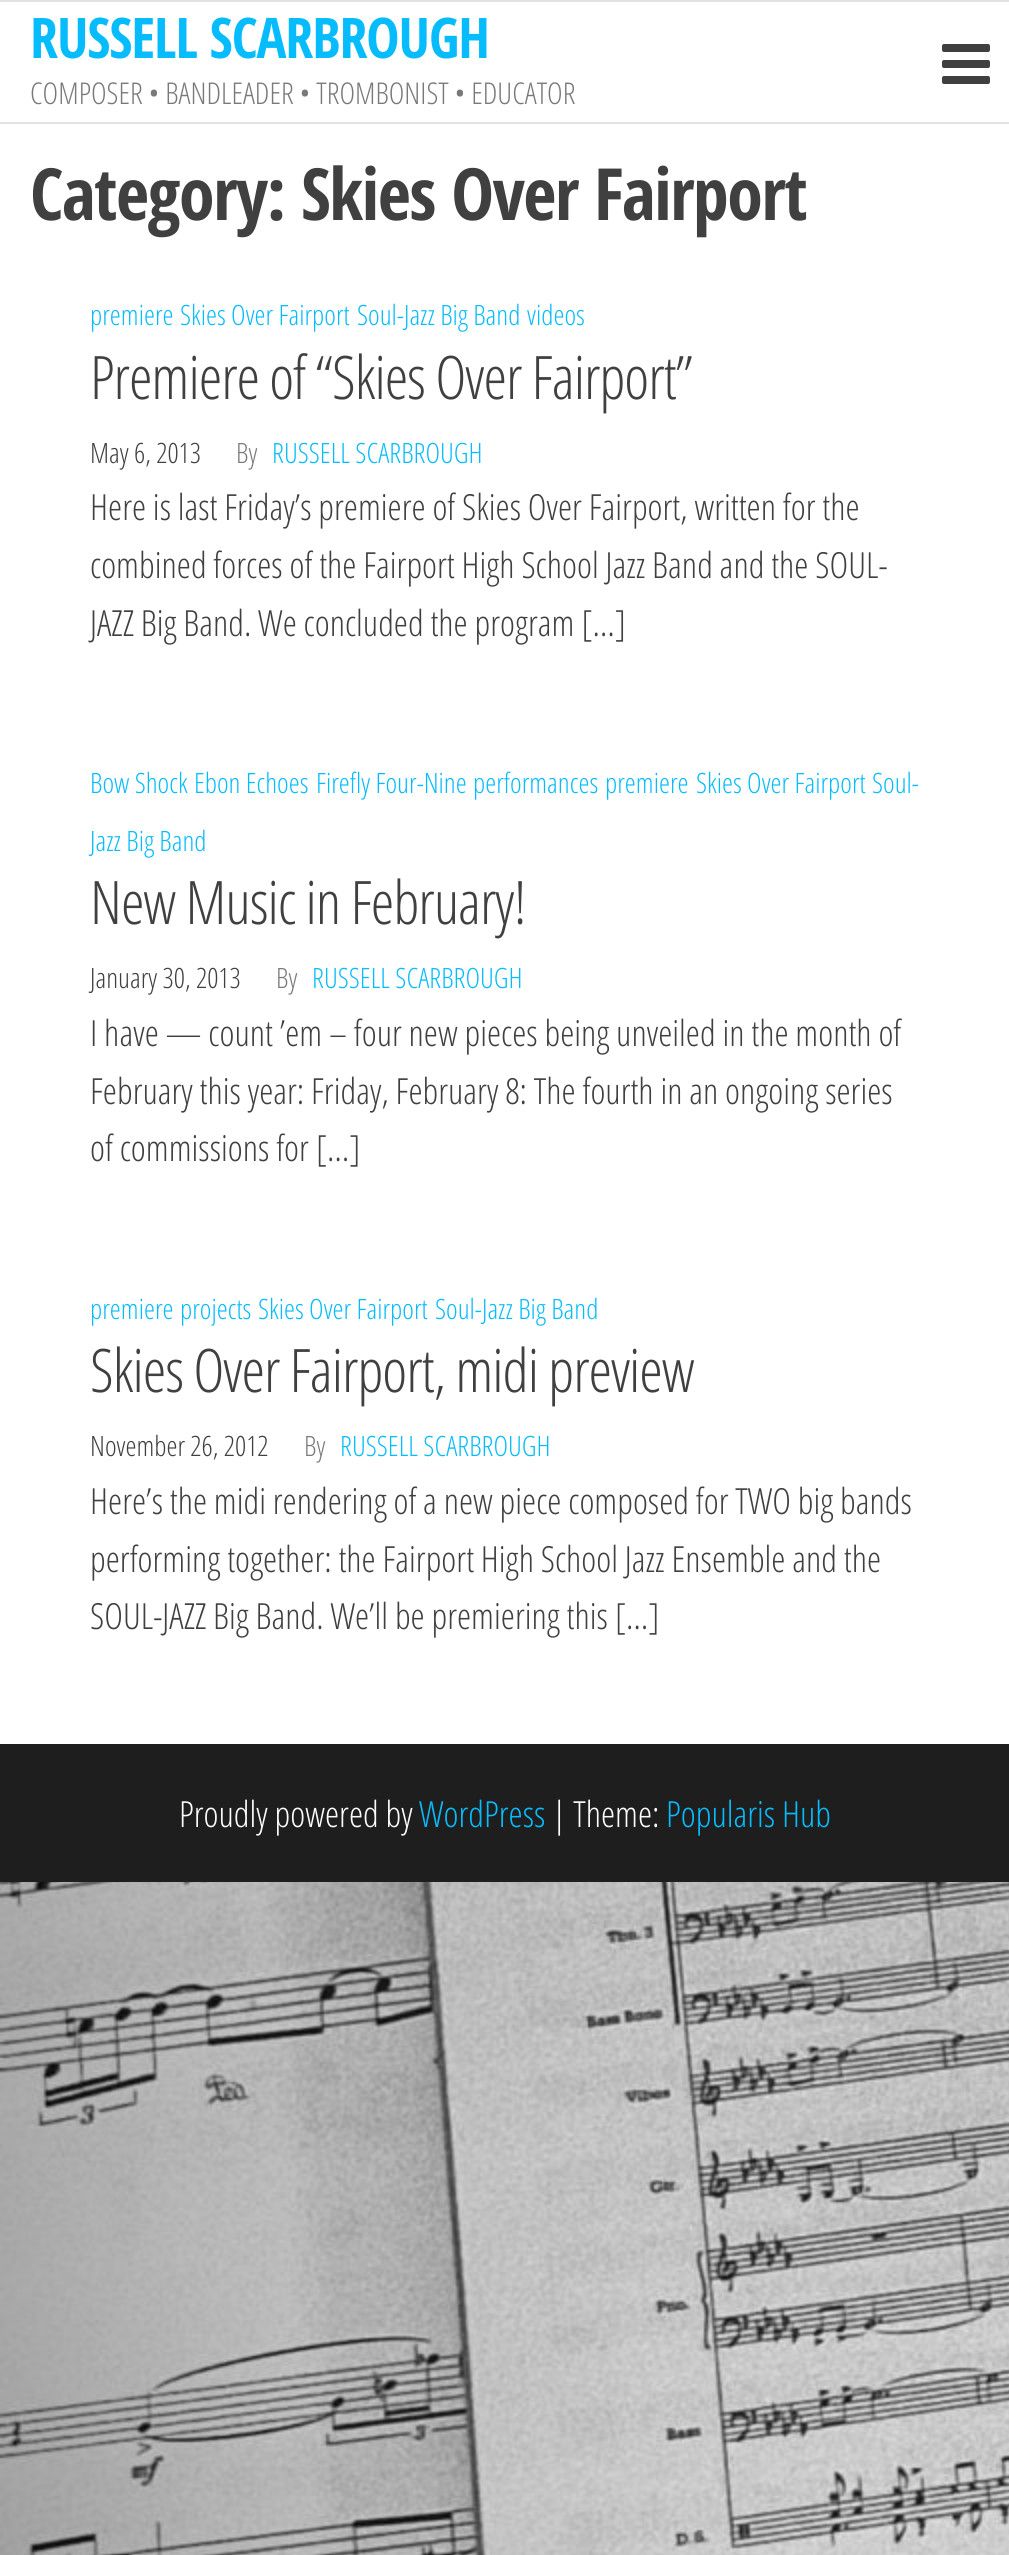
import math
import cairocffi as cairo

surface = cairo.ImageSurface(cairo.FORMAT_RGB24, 1009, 2555)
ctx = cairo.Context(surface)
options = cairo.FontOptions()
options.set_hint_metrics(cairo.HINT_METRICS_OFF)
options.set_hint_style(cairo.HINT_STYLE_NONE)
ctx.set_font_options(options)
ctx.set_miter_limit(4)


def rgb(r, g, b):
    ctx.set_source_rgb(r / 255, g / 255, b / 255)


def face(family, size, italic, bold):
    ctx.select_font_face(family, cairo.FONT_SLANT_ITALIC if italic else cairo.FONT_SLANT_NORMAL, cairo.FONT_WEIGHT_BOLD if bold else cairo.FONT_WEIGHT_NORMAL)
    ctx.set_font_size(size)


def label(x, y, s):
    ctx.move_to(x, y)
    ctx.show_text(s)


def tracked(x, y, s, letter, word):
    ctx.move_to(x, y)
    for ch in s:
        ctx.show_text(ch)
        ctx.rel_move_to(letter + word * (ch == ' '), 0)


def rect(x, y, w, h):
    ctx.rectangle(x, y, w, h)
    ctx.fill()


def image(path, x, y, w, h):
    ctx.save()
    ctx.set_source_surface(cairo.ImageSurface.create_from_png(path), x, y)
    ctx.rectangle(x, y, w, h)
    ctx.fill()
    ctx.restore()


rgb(255, 255, 255)
ctx.paint()
image('image0.png', 0, 1882, 1009, 673)
rgb(226, 226, 226)
rect(0, 0, 1009, 2)
rect(0, 122, 1009, 2)
face('Open Sans Condensed', 56, 0, 1)
rgb(7, 188, 253)
tracked(30, 58, 'RUSSELL SCARBROUGH', -1.1, 0)
face('Open Sans Condensed Light', 30, 0, 0)
rgb(121, 121, 121)
label(30, 104, 'COMPOSER • BANDLEADER • TROMBONIST • EDUCATOR')
image('image1.png', 942, 44, 48, 40)
face('Open Sans Condensed', 72, 0, 1)
rgb(64, 64, 64)
tracked(30, 220, 'Category: Skies Over Fairport', -1.45, 0)
face('Open Sans Condensed Light', 28, 0, 0)
rgb(7, 188, 253)
label(90, 325, 'premiere')
label(180, 325, 'Skies Over Fairport')
label(357, 325, 'Soul-Jazz Big Band')
label(527, 325, 'videos')
face('Open Sans Condensed Light', 60, 0, 0)
rgb(64, 64, 64)
tracked(90, 399, 'Premiere of “Skies Over Fairport”', -1.05, 0)
face('Open Sans Condensed Light', 28, 0, 0)
label(90, 463, 'May 6, 2013')
rgb(121, 121, 121)
label(236, 463, 'By')
rgb(7, 188, 253)
label(272, 463, 'RUSSELL SCARBROUGH')
face('Open Sans Condensed Light', 36, 0, 0)
rgb(64, 64, 64)
label(90, 520, 'Here is last Friday’s premiere of Skies Over Fairport, written for the')
label(90, 578, 'combined forces of the Fairport High School Jazz Band and the SOUL-')
label(90, 636, 'JAZZ Big Band. We concluded the program […]')
face('Open Sans Condensed Light', 28, 0, 0)
rgb(7, 188, 253)
label(90, 793, 'Bow Shock')
label(194, 793, 'Ebon Echoes')
label(316, 793, 'Firefly Four-Nine')
label(473, 793, 'performances')
label(605, 793, 'premiere')
label(696, 793, 'Skies Over Fairport')
label(872, 793, 'Soul-')
label(90, 851, 'Jazz Big Band')
face('Open Sans Condensed Light', 60, 0, 0)
rgb(64, 64, 64)
tracked(90, 924, 'New Music in February!', -1.05, 0)
face('Open Sans Condensed Light', 28, 0, 0)
label(90, 988, 'January 30, 2013')
rgb(121, 121, 121)
label(276, 988, 'By')
rgb(7, 188, 253)
label(312, 988, 'RUSSELL SCARBROUGH')
face('Open Sans Condensed Light', 36, 0, 0)
rgb(64, 64, 64)
label(90, 1046, 'I have — count ’em – four new pieces being unveiled in the month of')
label(90, 1104, 'February this year: Friday, February 8: The fourth in an ongoing series')
label(90, 1161, 'of commissions for […]')
face('Open Sans Condensed Light', 28, 0, 0)
rgb(7, 188, 253)
label(90, 1319, 'premiere')
label(180, 1319, 'projects')
label(258, 1319, 'Skies Over Fairport')
label(435, 1319, 'Soul-Jazz Big Band')
face('Open Sans Condensed Light', 60, 0, 0)
rgb(64, 64, 64)
tracked(90, 1392, 'Skies Over Fairport, midi preview', -1.05, 0)
face('Open Sans Condensed Light', 28, 0, 0)
label(90, 1456, 'November 26, 2012')
rgb(121, 121, 121)
label(304, 1456, 'By')
rgb(7, 188, 253)
label(340, 1456, 'RUSSELL SCARBROUGH')
face('Open Sans Condensed Light', 36, 0, 0)
rgb(64, 64, 64)
label(90, 1514, 'Here’s the midi rendering of a new piece composed for TWO big bands')
label(90, 1572, 'performing together: the Fairport High School Jazz Ensemble and the')
label(90, 1629, 'SOUL-JAZZ Big Band. We’ll be premiering this […]')
rgb(30, 30, 30)
rect(0, 1744, 1009, 138)
rgb(255, 255, 255)
label(179, 1827, 'Proudly powered by')
rgb(7, 188, 253)
label(419, 1827, 'WordPress')
rgb(255, 255, 255)
label(552, 1827, '| Theme:')
rgb(7, 188, 253)
label(666, 1827, 'Popularis Hub')
surface.write_to_png('render.png')
